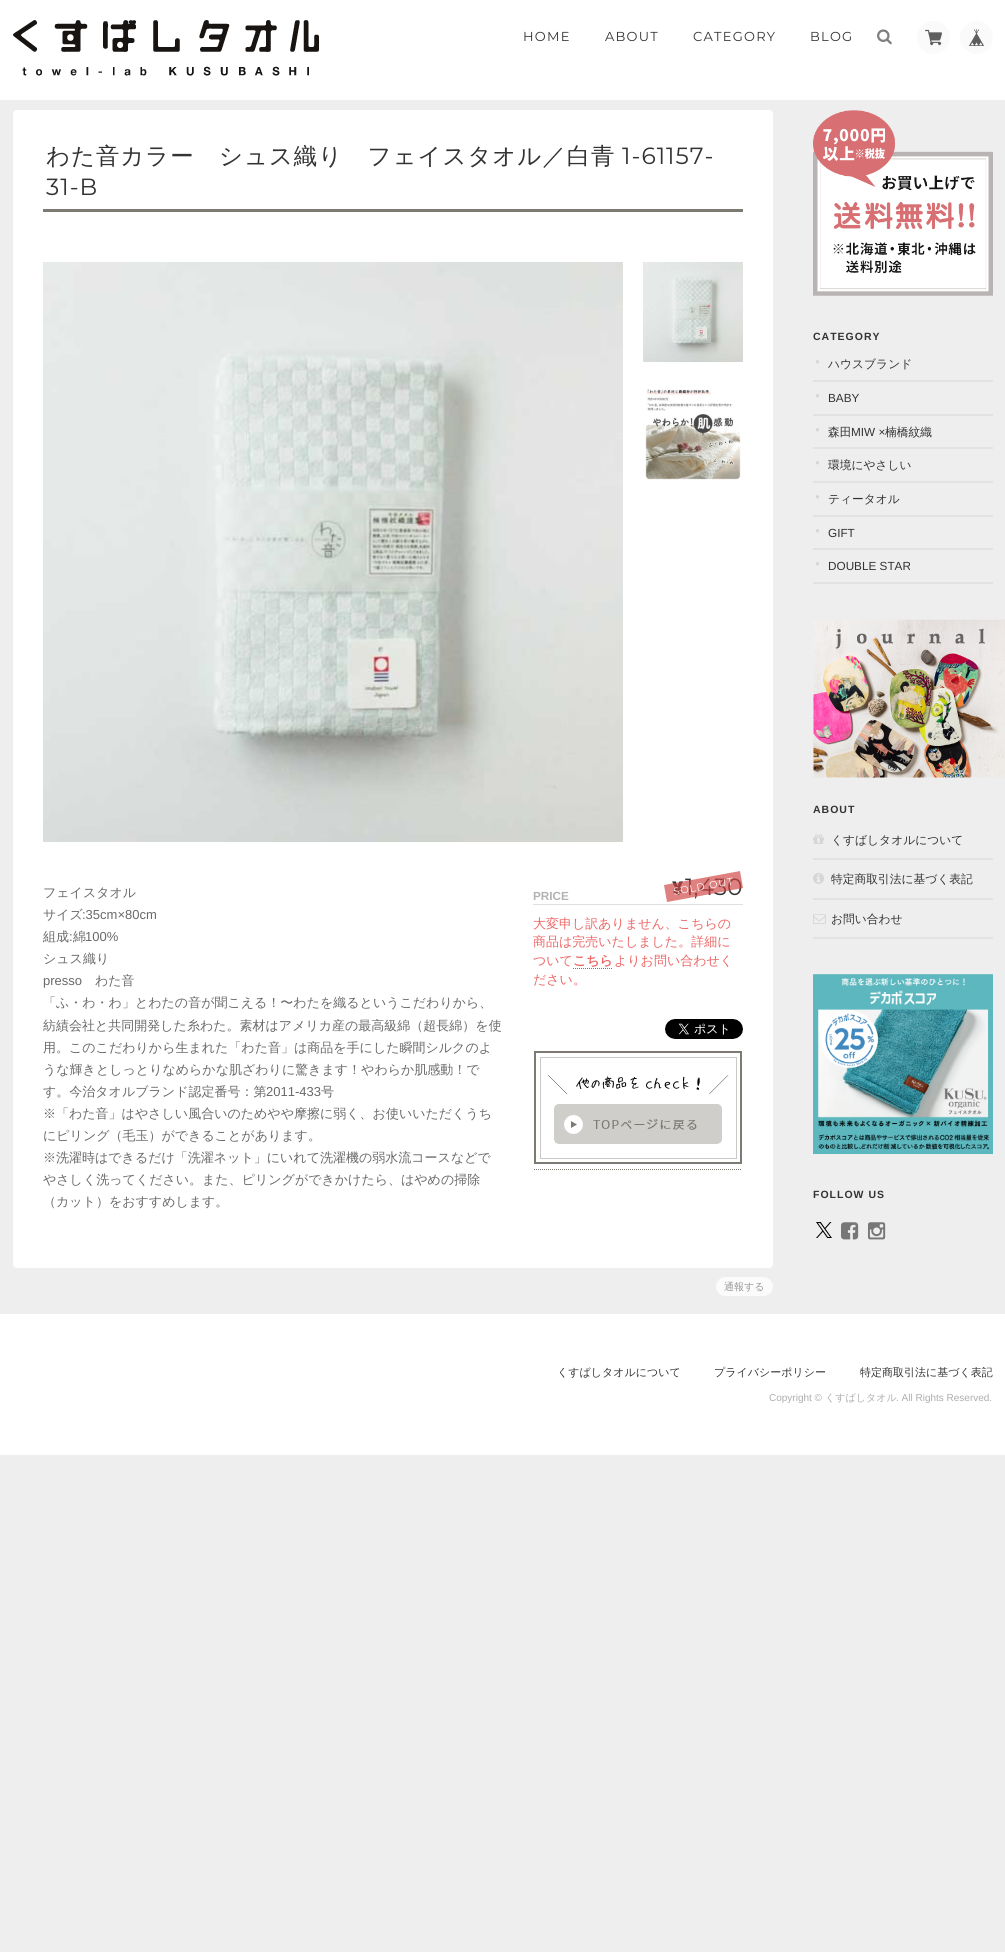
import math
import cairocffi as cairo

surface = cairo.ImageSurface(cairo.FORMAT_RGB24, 1005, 1952)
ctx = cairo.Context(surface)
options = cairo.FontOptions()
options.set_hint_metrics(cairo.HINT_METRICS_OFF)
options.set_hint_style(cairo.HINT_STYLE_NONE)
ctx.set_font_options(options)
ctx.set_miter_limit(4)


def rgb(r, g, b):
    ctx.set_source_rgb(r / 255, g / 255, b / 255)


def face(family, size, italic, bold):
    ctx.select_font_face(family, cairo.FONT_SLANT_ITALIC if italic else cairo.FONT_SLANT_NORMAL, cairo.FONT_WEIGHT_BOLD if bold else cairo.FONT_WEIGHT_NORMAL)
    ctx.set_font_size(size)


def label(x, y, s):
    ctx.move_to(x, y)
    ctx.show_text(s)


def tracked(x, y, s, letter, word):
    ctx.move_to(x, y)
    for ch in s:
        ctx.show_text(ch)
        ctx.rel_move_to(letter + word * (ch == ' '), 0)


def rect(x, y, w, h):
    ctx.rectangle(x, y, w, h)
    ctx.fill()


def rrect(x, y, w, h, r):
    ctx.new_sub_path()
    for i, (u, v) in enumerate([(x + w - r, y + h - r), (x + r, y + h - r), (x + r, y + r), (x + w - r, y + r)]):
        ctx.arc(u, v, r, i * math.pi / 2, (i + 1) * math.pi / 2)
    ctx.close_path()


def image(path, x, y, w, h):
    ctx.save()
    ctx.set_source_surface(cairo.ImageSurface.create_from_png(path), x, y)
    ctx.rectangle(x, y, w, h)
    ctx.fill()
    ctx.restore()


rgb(238, 238, 238)
ctx.paint()
rgb(255, 255, 255)
rect(0, 0, 1005, 100)
image('image0.png', 13, 20, 306, 56)
face('Montserrat', 13, 0, 0)
rgb(51, 51, 51)
tracked(523, 41, 'HOME', 1.25, 0)
tracked(605, 41, 'ABOUT', 1.25, 0)
tracked(693, 41, 'CATEGORY', 1.25, 0)
tracked(810, 41, 'BLOG', 1.25, 0)
image('image1.png', 877, 29, 15, 16)
ctx.set_source_rgba(0.98, 0.98, 0.98, 0.92)
ctx.arc(933.5, 37.5, 16.5, 0, 2 * math.pi)
ctx.fill()
image('image2.png', 925, 29, 17, 17)
ctx.arc(976.5, 37.5, 16.5, 0, 2 * math.pi)
ctx.fill()
image('image3.png', 968, 29, 17, 17)
rgb(255, 255, 255)
rrect(13, 110, 760, 1158, 4)
ctx.fill()
rgb(124, 122, 115)
rect(43, 209, 700, 3)
face('WenQuanYi Zen Hei Medium', 23.4, 0, 0)
rgb(51, 51, 51)
tracked(46, 164, 'わた音カラー　シュス織り　フェイスタオル／白青', 1, 0)
face('Montserrat', 23.4, 0, 0)
tracked(622, 164, '1-61157-', 1, 0)
tracked(46, 195, '31-B', 1, 0)
image('image4.png', 43, 262, 580, 580)
image('image5.png', 643, 262, 100, 100)
image('image6.png', 645, 389, 96, 91)
face('WenQuanYi Zen Hei Medium', 13, 0, 0)
rgb(105, 105, 105)
label(43, 897, 'フェイスタオル')
label(43, 919, 'サイズ')
face('Liberation Sans', 13, 0, 0)
label(82, 919, ':35cm×80cm')
face('WenQuanYi Zen Hei Medium', 13, 0, 0)
label(43, 941, '組成 綿')
face('Liberation Sans', 13, 0, 0)
label(85, 941, '100%')
label(69, 941, ':')
face('WenQuanYi Zen Hei Medium', 13, 0, 0)
label(43, 963, 'シュス織り')
face('Liberation Sans', 13, 0, 0)
label(43, 985, 'presso')
face('WenQuanYi Zen Hei Medium', 13, 0, 0)
label(95, 985, 'わた音')
label(43, 1007, '「ふ・わ・わ」とわたの音が聞こえる！〜わたを織るというこだわりから、')
label(43, 1030, '紡績会社と共同開発した糸わた。素材はアメリカ産の最高級綿（超長綿）を使')
label(43, 1052, '用。このこだわりから生まれた「わた音」は商品を手にした瞬間シルクのよ')
label(43, 1074, 'うな輝きとしっとりなめらかな肌ざわりに驚きます！やわらか肌感動！で')
label(43, 1096, 'す。今治タオルブランド認定番号：第')
face('Liberation Sans', 13, 0, 0)
label(266, 1096, '2011-433')
face('WenQuanYi Zen Hei Medium', 13, 0, 0)
label(321, 1096, '号')
label(43, 1118, '※「わた音」はやさしい風合いのためやや摩擦に弱く、お使いいただくうち')
label(43, 1140, 'にピリング（毛玉）ができることがあります。')
label(43, 1162, '※洗濯時はできるだけ「洗濯ネット」にいれて洗濯機の弱水流コースなどで')
label(43, 1184, 'やさしく洗ってください。また、ピリングができかけたら、はやめの掃除')
label(43, 1206, '（カット）をおすすめします。')
face('Liberation Sans', 11.75, 0, 1)
rgb(179, 179, 179)
label(533, 900, 'PRICE')
rgb(224, 224, 221)
rect(533, 904, 210, 1)
face('Noto Sans Black', 19, 0, 0)
rgb(51, 51, 51)
label(672, 895, '¥')
face('Montserrat', 23.4, 0, 0)
label(685, 895, '1,430')
ctx.set_source_rgba(0.816, 0.267, 0.267, 0.67)
ctx.new_path()
ctx.move_to(664, 885)
ctx.line_to(740, 871)
ctx.line_to(743, 888)
ctx.line_to(667, 902)
ctx.close_path()
ctx.fill()
face('Montserrat', 10, 0, 0)
rgb(255, 255, 255)
ctx.save()
ctx.translate(674, 895)
ctx.rotate(-10 * math.pi / 180)
tracked(0, 0, 'SOLD OUT', 1, 0)
ctx.restore()
face('WenQuanYi Zen Hei Medium', 13, 0, 0)
rgb(236, 102, 102)
label(533, 928, '大変申し訳ありません、こちらの')
label(533, 946, '商品は完売いたしました。詳細に')
label(533, 965, 'ついて')
face('WenQuanYi Zen Hei', 13, 0, 1)
label(573, 965, 'こちら')
ctx.new_path()
ctx.move_to(573, 968.5)
ctx.line_to(613, 968.5)
rgb(124, 122, 115)
ctx.set_line_width(1)
ctx.set_dash([1, 1])
ctx.stroke()
face('WenQuanYi Zen Hei Medium', 13, 0, 0)
rgb(236, 102, 102)
label(614, 965, 'よりお問い合わせく')
label(533, 984, 'ださい。')
image('image7.png', 665, 1019, 78, 20)
ctx.new_path()
ctx.move_to(534, 1169.5)
ctx.line_to(742, 1169.5)
rgb(124, 122, 115)
ctx.stroke()
image('image8.png', 534, 1051, 208, 113)
rgb(251, 251, 251)
rrect(716, 1277, 57, 19, 9.5)
ctx.fill()
face('WenQuanYi Zen Hei Medium', 10, 0, 0)
rgb(152, 152, 152)
label(724, 1290, '通報する')
image('image9.png', 813, 110, 180, 186)
face('Liberation Sans', 10.5, 0, 1)
rgb(51, 51, 51)
tracked(813, 340, 'CATEGORY', 1, 0)
rgb(226, 226, 226)
rect(813, 380, 180, 2)
face('Liberation Sans', 8, 0, 0)
rgb(214, 214, 214)
label(815, 364, '●')
face('WenQuanYi Zen Hei Medium', 11.75, 0, 0)
rgb(51, 51, 51)
label(828, 368, 'ハウスブランド')
rgb(226, 226, 226)
rect(813, 414, 180, 2)
face('Liberation Sans', 8, 0, 0)
rgb(214, 214, 214)
label(815, 398, '●')
face('Liberation Sans', 11.75, 0, 0)
rgb(51, 51, 51)
label(828, 402, 'BABY')
rgb(226, 226, 226)
rect(813, 447, 180, 2)
face('Liberation Sans', 8, 0, 0)
rgb(214, 214, 214)
label(815, 432, '●')
face('WenQuanYi Zen Hei Medium', 11.75, 0, 0)
rgb(51, 51, 51)
label(828, 436, '森田')
face('Liberation Sans', 11.75, 0, 0)
label(851, 436, 'MIW ×')
face('WenQuanYi Zen Hei Medium', 11.75, 0, 0)
label(885, 436, '楠橋紋織')
rgb(226, 226, 226)
rect(813, 481, 180, 2)
face('Liberation Sans', 8, 0, 0)
rgb(214, 214, 214)
label(815, 465, '●')
face('WenQuanYi Zen Hei Medium', 11.75, 0, 0)
rgb(51, 51, 51)
label(828, 469, '環境にやさしい')
rgb(226, 226, 226)
rect(813, 515, 180, 2)
face('Liberation Sans', 8, 0, 0)
rgb(214, 214, 214)
label(815, 499, '●')
face('WenQuanYi Zen Hei Medium', 11.75, 0, 0)
rgb(51, 51, 51)
label(828, 503, 'ティータオル')
rgb(226, 226, 226)
rect(813, 548, 180, 2)
face('Liberation Sans', 8, 0, 0)
rgb(214, 214, 214)
label(815, 533, '●')
face('Liberation Sans', 11.75, 0, 0)
rgb(51, 51, 51)
label(828, 537, 'GIFT')
rgb(226, 226, 226)
rect(813, 582, 180, 2)
face('Liberation Sans', 8, 0, 0)
rgb(214, 214, 214)
label(815, 566, '●')
face('Liberation Sans', 11.75, 0, 0)
rgb(51, 51, 51)
label(828, 570, 'DOUBLE STAR')
image('image10.png', 813, 619, 192, 159)
face('Liberation Sans', 10.5, 0, 1)
tracked(813, 813, 'ABOUT', 1, 0)
rgb(226, 226, 226)
rect(813, 858, 180, 2)
image('image11.png', 813, 834, 11, 10)
face('WenQuanYi Zen Hei Medium', 11.75, 0, 0)
rgb(51, 51, 51)
label(831, 844, 'くすばしタオルについて')
rgb(226, 226, 226)
rect(813, 898, 180, 2)
image('image12.png', 813, 873, 11, 11)
rgb(51, 51, 51)
label(831, 883, '特定商取引法に基づく表記')
rgb(226, 226, 226)
rect(813, 937, 180, 2)
image('image13.png', 813, 914, 13, 10)
rgb(51, 51, 51)
label(831, 923, 'お問い合わせ')
image('image14.png', 813, 974, 180, 180)
face('Liberation Sans', 10.5, 0, 1)
tracked(813, 1198, 'FOLLOW US', 1, 0)
image('image15.png', 816, 1222, 16, 16)
image('image16.png', 841, 1222, 18, 18)
image('image17.png', 868, 1222, 18, 18)
rgb(255, 255, 255)
rect(0, 1314, 1005, 141)
face('WenQuanYi Zen Hei Medium', 11, 0, 0)
rgb(51, 51, 51)
label(557, 1376, 'くすばしタオルについて')
label(714, 1376, 'プライバシーポリシー')
label(860, 1376, '特定商取引法に基づく表記')
face('Liberation Sans', 10, 0, 0)
rgb(173, 173, 173)
label(769, 1401, 'Copyright ©')
face('WenQuanYi Zen Hei Medium', 10, 0, 0)
label(825, 1401, 'くすばしタオル')
face('Liberation Sans', 10, 0, 0)
label(896, 1401, '. All Rights Reserved.')
surface.write_to_png('render.png')
